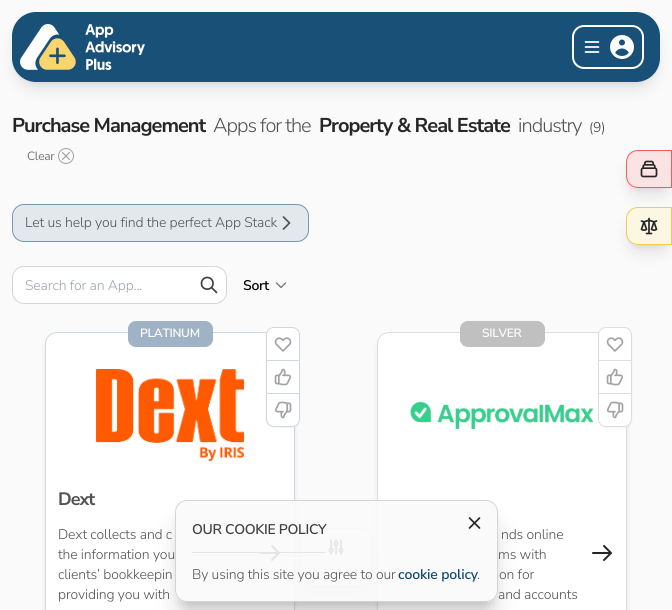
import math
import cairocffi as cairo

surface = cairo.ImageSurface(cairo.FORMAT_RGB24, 672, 610)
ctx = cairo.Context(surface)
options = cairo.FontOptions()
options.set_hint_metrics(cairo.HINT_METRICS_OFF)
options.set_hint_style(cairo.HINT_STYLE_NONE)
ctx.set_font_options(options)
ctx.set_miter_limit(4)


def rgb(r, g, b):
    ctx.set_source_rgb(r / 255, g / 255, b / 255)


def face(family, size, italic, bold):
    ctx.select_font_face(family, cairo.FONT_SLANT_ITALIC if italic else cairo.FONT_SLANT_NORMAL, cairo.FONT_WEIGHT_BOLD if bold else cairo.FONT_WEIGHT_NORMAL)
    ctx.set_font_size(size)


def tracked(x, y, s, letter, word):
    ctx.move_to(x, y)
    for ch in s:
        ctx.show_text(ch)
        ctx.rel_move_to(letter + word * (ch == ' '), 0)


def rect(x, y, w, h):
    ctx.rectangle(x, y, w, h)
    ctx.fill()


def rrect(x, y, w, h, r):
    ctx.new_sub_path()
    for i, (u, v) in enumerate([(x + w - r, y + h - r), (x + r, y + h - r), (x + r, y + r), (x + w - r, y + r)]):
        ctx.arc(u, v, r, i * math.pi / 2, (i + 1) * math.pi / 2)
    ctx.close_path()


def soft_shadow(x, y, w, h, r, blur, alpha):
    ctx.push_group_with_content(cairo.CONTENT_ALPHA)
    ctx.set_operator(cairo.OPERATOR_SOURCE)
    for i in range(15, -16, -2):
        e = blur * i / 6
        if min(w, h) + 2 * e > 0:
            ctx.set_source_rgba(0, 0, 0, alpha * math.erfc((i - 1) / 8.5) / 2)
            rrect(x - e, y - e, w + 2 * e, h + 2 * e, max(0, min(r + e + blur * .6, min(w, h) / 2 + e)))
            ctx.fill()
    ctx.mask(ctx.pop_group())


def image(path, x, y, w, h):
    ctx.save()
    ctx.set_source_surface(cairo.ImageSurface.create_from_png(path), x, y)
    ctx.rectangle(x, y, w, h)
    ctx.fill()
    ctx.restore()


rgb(250, 250, 250)
ctx.paint()
ctx.save()
ctx.set_fill_rule(cairo.FILL_RULE_EVEN_ODD)
ctx.new_path()
ctx.move_to(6, 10)
ctx.line_to(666, 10)
ctx.line_to(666, 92)
ctx.line_to(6, 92)
ctx.close_path()
ctx.move_to(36, 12)
ctx.line_to(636, 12)
ctx.curve_to(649.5, 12, 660, 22.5, 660, 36)
ctx.line_to(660, 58)
ctx.curve_to(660, 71.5, 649.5, 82, 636, 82)
ctx.line_to(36, 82)
ctx.curve_to(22.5, 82, 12, 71.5, 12, 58)
ctx.line_to(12, 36)
ctx.curve_to(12, 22.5, 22.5, 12, 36, 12)
ctx.close_path()
ctx.clip()
rgb(0, 0, 0)
soft_shadow(16, 20, 640, 62, 20, 3, 0.1)
ctx.restore()
ctx.save()
ctx.set_fill_rule(cairo.FILL_RULE_EVEN_ODD)
ctx.new_path()
ctx.move_to(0, 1)
ctx.line_to(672, 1)
ctx.line_to(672, 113)
ctx.line_to(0, 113)
ctx.close_path()
ctx.move_to(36, 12)
ctx.line_to(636, 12)
ctx.curve_to(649.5, 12, 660, 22.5, 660, 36)
ctx.line_to(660, 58)
ctx.curve_to(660, 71.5, 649.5, 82, 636, 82)
ctx.line_to(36, 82)
ctx.curve_to(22.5, 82, 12, 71.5, 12, 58)
ctx.line_to(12, 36)
ctx.curve_to(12, 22.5, 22.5, 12, 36, 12)
ctx.close_path()
ctx.clip()
rgb(0, 0, 0)
soft_shadow(15, 25, 642, 64, 21, 7.5, 0.1)
ctx.restore()
ctx.set_source_rgba(0.055, 0.282, 0.447, 0.95)
rrect(12, 12, 648, 70, 24)
ctx.fill()
image('image0.png', 20, 24, 125, 46)
rrect(573, 26, 70, 42, 11)
rgb(255, 255, 255)
ctx.stroke()
ctx.new_path()
ctx.move_to(585.5, 42)
ctx.line_to(598.5, 42)
ctx.move_to(585.5, 47)
ctx.line_to(598.5, 47)
ctx.move_to(585.5, 52)
ctx.line_to(598.5, 52)
ctx.set_line_width(1.7)
ctx.set_line_cap(cairo.LINE_CAP_ROUND)
ctx.set_line_join(cairo.LINE_JOIN_ROUND)
ctx.stroke()
image('image1.png', 610, 35, 24, 24)
face('Nunito Sans', 20, 0, 1)
rgb(38, 38, 38)
tracked(12, 132, 'Purchase Management', -1, 0)
face('Nunito Sans Light', 20, 0, 0)
rgb(82, 82, 82)
tracked(213, 132, 'Apps for the', -1, 0)
face('Nunito Sans', 20, 0, 1)
rgb(38, 38, 38)
tracked(319, 132, 'Property & Real Estate', -1, 0)
face('Nunito Sans Light', 20, 0, 0)
rgb(82, 82, 82)
tracked(518, 132, 'industry', -1, 0)
face('Nunito Sans Light', 14, 0, 0)
rgb(64, 64, 64)
tracked(589, 132, '(9)', -0.15, 0)
face('Nunito Sans', 12, 0, 0)
rgb(115, 115, 115)
tracked(27, 160, 'Clear', -0.25, 0)
ctx.new_path()
ctx.arc(66, 156, 7.5, 0, 2 * math.pi)
rgb(163, 163, 163)
ctx.set_line_width(1)
ctx.set_line_cap(cairo.LINE_CAP_BUTT)
ctx.set_line_join(cairo.LINE_JOIN_MITER)
ctx.stroke()
ctx.new_path()
ctx.move_to(62.5, 159.5)
ctx.line_to(69.5, 152.5)
ctx.move_to(62.5, 152.5)
ctx.line_to(69.5, 159.5)
ctx.set_line_width(1.2)
ctx.set_line_cap(cairo.LINE_CAP_ROUND)
ctx.set_line_join(cairo.LINE_JOIN_ROUND)
ctx.stroke()
rgb(226, 232, 236)
rrect(12, 204, 297, 38, 12)
ctx.fill()
rrect(12.5, 204.5, 296, 37, 11.5)
ctx.set_source_rgba(0.055, 0.282, 0.447, 0.5)
ctx.set_line_width(1)
ctx.set_line_cap(cairo.LINE_CAP_BUTT)
ctx.set_line_join(cairo.LINE_JOIN_MITER)
ctx.stroke()
face('Nunito Sans Light', 14, 0, 0)
rgb(82, 82, 82)
tracked(25, 227, 'Let us help you find the perfect App Stack', -0.15, 0)
ctx.new_path()
ctx.move_to(283.5, 217)
ctx.line_to(289.5, 223)
ctx.line_to(283.5, 229)
ctx.set_line_width(1.7)
ctx.set_line_cap(cairo.LINE_CAP_ROUND)
ctx.set_line_join(cairo.LINE_JOIN_ROUND)
ctx.stroke()
rgb(255, 255, 255)
rrect(12.5, 266.5, 214, 37, 11.5)
ctx.fill_preserve()
rgb(212, 212, 212)
ctx.set_line_width(1)
ctx.set_line_cap(cairo.LINE_CAP_BUTT)
ctx.set_line_join(cairo.LINE_JOIN_MITER)
ctx.stroke()
rgb(156, 163, 175)
tracked(25, 290, 'Search for an App...', -0.15, 0)
ctx.new_path()
ctx.move_to(216.5, 292.5)
ctx.line_to(211.5, 287.5)
ctx.move_to(213, 283.5)
ctx.curve_to(213, 291, 201.5, 291, 201.5, 283.5)
ctx.curve_to(201.5, 275.5, 213, 275.5, 213, 283.5)
ctx.close_path()
rgb(64, 64, 64)
ctx.set_line_width(1.7)
ctx.set_line_cap(cairo.LINE_CAP_ROUND)
ctx.set_line_join(cairo.LINE_JOIN_ROUND)
ctx.stroke()
face('Nunito Sans SemiBold', 14, 0, 0)
rgb(0, 0, 0)
tracked(243, 290, 'Sort', -0.3, 0)
ctx.new_path()
ctx.move_to(285.5, 283)
ctx.line_to(281, 287.5)
ctx.line_to(276.5, 283)
rgb(115, 115, 115)
ctx.set_line_width(1.3)
ctx.stroke()
rgb(0, 0, 0)
soft_shadow(46, 337, 248, 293, 11, 3, 0.1)
rgb(255, 255, 255)
rrect(45, 332, 250, 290, 12)
ctx.fill()
rrect(45.5, 332.5, 249, 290, 11.5)
ctx.set_source_rgba(0.627, 0.698, 0.776, 0.5)
ctx.set_line_width(1)
ctx.set_line_cap(cairo.LINE_CAP_BUTT)
ctx.set_line_join(cairo.LINE_JOIN_MITER)
ctx.stroke()
rgb(160, 178, 198)
rrect(128.5, 321.5, 84, 25, 7.5)
ctx.fill_preserve()
ctx.stroke()
face('Nunito Sans SemiBold', 12, 0, 0)
rgb(255, 255, 255)
tracked(140, 337, 'PLATINUM', -0.25, 0)
rgb(0, 0, 0)
soft_shadow(266, 328, 34, 100, 8, 1, 0.05)
rgb(255, 255, 255)
rrect(266, 327, 34, 100, 8)
ctx.fill()
rrect(266.5, 327.5, 33, 99, 7.5)
ctx.set_source_rgba(0.627, 0.698, 0.776, 0.5)
ctx.stroke()
image('image2.png', 274, 337, 18, 15)
rgb(208, 217, 227)
rect(267, 360, 32, 1)
image('image3.png', 274, 368, 18, 18)
rect(267, 393, 32, 1)
image('image4.png', 274, 401, 18, 18)
image('image5.png', 96, 369, 148, 92)
face('Nunito Sans', 18, 0, 1)
rgb(82, 82, 82)
tracked(58, 505, 'Dext', -1, 0)
face('Nunito Sans Light', 14, 0, 0)
tracked(58, 539, 'Dext collects and c', -0.15, 0)
tracked(58, 559, 'the information you', -0.15, 0)
tracked(58, 579, 'clients’ bookkeepin', -0.15, 0)
tracked(58, 599, 'providing you with', -0.15, 0)
ctx.new_path()
ctx.move_to(272, 546)
ctx.line_to(279, 553)
ctx.move_to(279, 553)
ctx.line_to(272, 560)
ctx.move_to(279, 553)
ctx.line_to(261, 553)
rgb(38, 38, 38)
ctx.set_line_width(2)
ctx.set_line_cap(cairo.LINE_CAP_ROUND)
ctx.set_line_join(cairo.LINE_JOIN_ROUND)
ctx.stroke()
rgb(0, 0, 0)
soft_shadow(378, 337, 248, 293, 11, 3, 0.1)
rgb(255, 255, 255)
rrect(377, 332, 250, 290, 12)
ctx.fill()
rrect(377.5, 332.5, 249, 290, 11.5)
ctx.set_source_rgba(0.749, 0.749, 0.749, 0.5)
ctx.set_line_width(1)
ctx.set_line_cap(cairo.LINE_CAP_BUTT)
ctx.set_line_join(cairo.LINE_JOIN_MITER)
ctx.stroke()
rgb(192, 192, 192)
rrect(460.5, 321.5, 84, 25, 7.5)
ctx.fill_preserve()
ctx.stroke()
face('Nunito Sans SemiBold', 12, 0, 0)
rgb(255, 255, 255)
tracked(482, 337, 'SILVER', -0.25, 0)
rgb(0, 0, 0)
soft_shadow(598, 328, 34, 100, 8, 1, 0.05)
rgb(255, 255, 255)
rrect(598, 327, 34, 100, 8)
ctx.fill()
rrect(598.5, 327.5, 33, 99, 7.5)
ctx.set_source_rgba(0.749, 0.749, 0.749, 0.5)
ctx.stroke()
image('image2.png', 606, 337, 18, 15)
rgb(223, 223, 223)
rect(599, 360, 32, 1)
image('image3.png', 606, 368, 18, 18)
rect(599, 393, 32, 1)
image('image4.png', 606, 401, 18, 18)
image('image6.png', 410, 401, 184, 28)
face('Nunito Sans Light', 14, 0, 0)
rgb(82, 82, 82)
tracked(501, 539, 'nds online', -0.15, 0)
tracked(498, 559, 'ms with', -0.15, 0)
tracked(499, 579, 'on for', -0.15, 0)
tracked(498, 599, 'and accounts', -0.15, 0)
ctx.new_path()
ctx.move_to(604, 546)
ctx.line_to(611, 553)
ctx.move_to(611, 553)
ctx.line_to(604, 560)
ctx.move_to(611, 553)
ctx.line_to(593, 553)
rgb(38, 38, 38)
ctx.set_line_width(2)
ctx.set_line_cap(cairo.LINE_CAP_ROUND)
ctx.set_line_join(cairo.LINE_JOIN_ROUND)
ctx.stroke()
ctx.save()
ctx.set_fill_rule(cairo.FILL_RULE_EVEN_ODD)
ctx.new_path()
ctx.move_to(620, 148)
ctx.line_to(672, 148)
ctx.line_to(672, 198)
ctx.line_to(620, 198)
ctx.close_path()
ctx.move_to(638, 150)
ctx.line_to(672, 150)
ctx.line_to(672, 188)
ctx.line_to(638, 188)
ctx.curve_to(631.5, 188, 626, 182.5, 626, 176)
ctx.line_to(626, 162)
ctx.curve_to(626, 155.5, 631.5, 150, 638, 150)
ctx.close_path()
ctx.clip()
rgb(0, 0, 0)
soft_shadow(630, 158, 38, 30, 8, 3, 0.1)
ctx.restore()
ctx.save()
ctx.set_fill_rule(cairo.FILL_RULE_EVEN_ODD)
ctx.new_path()
ctx.move_to(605, 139)
ctx.line_to(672, 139)
ctx.line_to(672, 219)
ctx.line_to(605, 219)
ctx.close_path()
ctx.move_to(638, 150)
ctx.line_to(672, 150)
ctx.line_to(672, 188)
ctx.line_to(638, 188)
ctx.curve_to(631.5, 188, 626, 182.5, 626, 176)
ctx.line_to(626, 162)
ctx.curve_to(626, 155.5, 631.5, 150, 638, 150)
ctx.close_path()
ctx.clip()
rgb(0, 0, 0)
soft_shadow(629, 163, 40, 32, 9, 7.5, 0.1)
ctx.restore()
ctx.set_source_rgba(0.988, 0.851, 0.851, 0.7)
ctx.new_path()
ctx.move_to(638, 150.5)
ctx.line_to(671.5, 150.5)
ctx.line_to(671.5, 187.5)
ctx.line_to(638, 187.5)
ctx.curve_to(631.5, 187.5, 626.5, 182.5, 626.5, 176)
ctx.line_to(626.5, 162)
ctx.curve_to(626.5, 155.5, 631.5, 150.5, 638, 150.5)
ctx.close_path()
ctx.fill_preserve()
rgb(242, 94, 94)
ctx.set_line_width(1)
ctx.set_line_cap(cairo.LINE_CAP_BUTT)
ctx.set_line_join(cairo.LINE_JOIN_MITER)
ctx.stroke()
image('image7.png', 640, 160, 18, 18)
ctx.save()
ctx.set_fill_rule(cairo.FILL_RULE_EVEN_ODD)
ctx.new_path()
ctx.move_to(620, 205)
ctx.line_to(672, 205)
ctx.line_to(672, 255)
ctx.line_to(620, 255)
ctx.close_path()
ctx.move_to(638, 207)
ctx.line_to(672, 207)
ctx.line_to(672, 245)
ctx.line_to(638, 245)
ctx.curve_to(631.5, 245, 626, 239.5, 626, 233)
ctx.line_to(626, 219)
ctx.curve_to(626, 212.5, 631.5, 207, 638, 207)
ctx.close_path()
ctx.clip()
rgb(0, 0, 0)
soft_shadow(630, 215, 38, 30, 8, 3, 0.1)
ctx.restore()
ctx.save()
ctx.set_fill_rule(cairo.FILL_RULE_EVEN_ODD)
ctx.new_path()
ctx.move_to(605, 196)
ctx.line_to(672, 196)
ctx.line_to(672, 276)
ctx.line_to(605, 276)
ctx.close_path()
ctx.move_to(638, 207)
ctx.line_to(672, 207)
ctx.line_to(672, 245)
ctx.line_to(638, 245)
ctx.curve_to(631.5, 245, 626, 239.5, 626, 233)
ctx.line_to(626, 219)
ctx.curve_to(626, 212.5, 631.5, 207, 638, 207)
ctx.close_path()
ctx.clip()
rgb(0, 0, 0)
soft_shadow(629, 220, 40, 32, 9, 7.5, 0.1)
ctx.restore()
ctx.set_source_rgba(0.988, 0.961, 0.851, 0.7)
ctx.new_path()
ctx.move_to(638, 207.5)
ctx.line_to(671.5, 207.5)
ctx.line_to(671.5, 244.5)
ctx.line_to(638, 244.5)
ctx.curve_to(631.5, 244.5, 626.5, 239.5, 626.5, 233)
ctx.line_to(626.5, 219)
ctx.curve_to(626.5, 212.5, 631.5, 207.5, 638, 207.5)
ctx.close_path()
ctx.fill_preserve()
rgb(240, 205, 82)
ctx.stroke()
image('image8.png', 640, 217, 18, 18)
ctx.save()
ctx.set_fill_rule(cairo.FILL_RULE_EVEN_ODD)
ctx.new_path()
ctx.move_to(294, 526)
ctx.line_to(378, 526)
ctx.line_to(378, 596)
ctx.line_to(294, 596)
ctx.close_path()
ctx.move_to(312, 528)
ctx.line_to(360, 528)
ctx.curve_to(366.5, 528, 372, 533.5, 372, 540)
ctx.line_to(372, 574)
ctx.curve_to(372, 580.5, 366.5, 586, 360, 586)
ctx.line_to(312, 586)
ctx.curve_to(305.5, 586, 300, 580.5, 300, 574)
ctx.line_to(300, 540)
ctx.curve_to(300, 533.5, 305.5, 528, 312, 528)
ctx.close_path()
ctx.clip()
rgb(0, 0, 0)
soft_shadow(304, 536, 64, 50, 8, 3, 0.1)
ctx.restore()
ctx.save()
ctx.set_fill_rule(cairo.FILL_RULE_EVEN_ODD)
ctx.new_path()
ctx.move_to(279, 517)
ctx.line_to(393, 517)
ctx.line_to(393, 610)
ctx.line_to(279, 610)
ctx.close_path()
ctx.move_to(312, 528)
ctx.line_to(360, 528)
ctx.curve_to(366.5, 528, 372, 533.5, 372, 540)
ctx.line_to(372, 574)
ctx.curve_to(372, 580.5, 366.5, 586, 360, 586)
ctx.line_to(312, 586)
ctx.curve_to(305.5, 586, 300, 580.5, 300, 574)
ctx.line_to(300, 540)
ctx.curve_to(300, 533.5, 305.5, 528, 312, 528)
ctx.close_path()
ctx.clip()
rgb(0, 0, 0)
soft_shadow(303, 541, 66, 52, 9, 7.5, 0.1)
ctx.restore()
ctx.set_source_rgba(1, 1, 1, 0.95)
rrect(300.5, 528.5, 71, 57, 11.5)
ctx.fill_preserve()
rgb(229, 229, 229)
ctx.stroke()
image('image9.png', 328, 539, 16, 16)
ctx.save()
ctx.set_fill_rule(cairo.FILL_RULE_EVEN_ODD)
ctx.new_path()
ctx.move_to(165, 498)
ctx.line_to(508, 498)
ctx.line_to(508, 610)
ctx.line_to(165, 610)
ctx.close_path()
ctx.move_to(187, 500)
ctx.line_to(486, 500)
ctx.curve_to(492.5, 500, 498, 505.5, 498, 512)
ctx.line_to(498, 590)
ctx.curve_to(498, 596.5, 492.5, 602, 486, 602)
ctx.line_to(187, 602)
ctx.curve_to(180.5, 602, 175, 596.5, 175, 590)
ctx.line_to(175, 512)
ctx.curve_to(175, 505.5, 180.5, 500, 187, 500)
ctx.close_path()
ctx.clip()
rgb(115, 115, 115)
soft_shadow(181, 514, 311, 90, 6, 5, 0.3)
ctx.restore()
ctx.save()
ctx.set_fill_rule(cairo.FILL_RULE_EVEN_ODD)
ctx.new_path()
ctx.move_to(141, 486)
ctx.line_to(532, 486)
ctx.line_to(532, 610)
ctx.line_to(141, 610)
ctx.close_path()
ctx.move_to(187, 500)
ctx.line_to(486, 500)
ctx.curve_to(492.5, 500, 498, 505.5, 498, 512)
ctx.line_to(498, 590)
ctx.curve_to(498, 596.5, 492.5, 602, 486, 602)
ctx.line_to(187, 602)
ctx.curve_to(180.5, 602, 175, 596.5, 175, 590)
ctx.line_to(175, 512)
ctx.curve_to(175, 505.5, 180.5, 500, 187, 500)
ctx.close_path()
ctx.clip()
rgb(115, 115, 115)
soft_shadow(180, 525, 313, 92, 7, 12.5, 0.3)
ctx.restore()
ctx.set_source_rgba(0.98, 0.98, 0.98, 0.9)
rrect(175.5, 500.5, 322, 101, 11.5)
ctx.fill_preserve()
rgb(212, 212, 212)
ctx.stroke()
ctx.new_path()
ctx.move_to(469.5, 528)
ctx.line_to(479.5, 518)
ctx.move_to(469.5, 518)
ctx.line_to(479.5, 528)
rgb(38, 38, 38)
ctx.set_line_width(1.7)
ctx.set_line_cap(cairo.LINE_CAP_ROUND)
ctx.set_line_join(cairo.LINE_JOIN_ROUND)
ctx.stroke()
face('Nunito Sans SemiBold', 14, 0, 0)
rgb(64, 64, 64)
tracked(192, 534, 'OUR COOKIE POLICY', -0.3, 0)
rgb(229, 229, 229)
rect(192, 552, 133, 1)
face('Nunito Sans Light', 14, 0, 0)
rgb(82, 82, 82)
tracked(192, 579, 'By using this site you agree to our', -0.15, 0)
face('Nunito Sans SemiBold', 14, 0, 0)
rgb(14, 72, 114)
tracked(398, 579, 'cookie policy', -0.15, 0)
face('Nunito Sans Light', 14, 0, 0)
rgb(82, 82, 82)
tracked(477, 579, '.', -0.15, 0)
surface.write_to_png('render.png')
